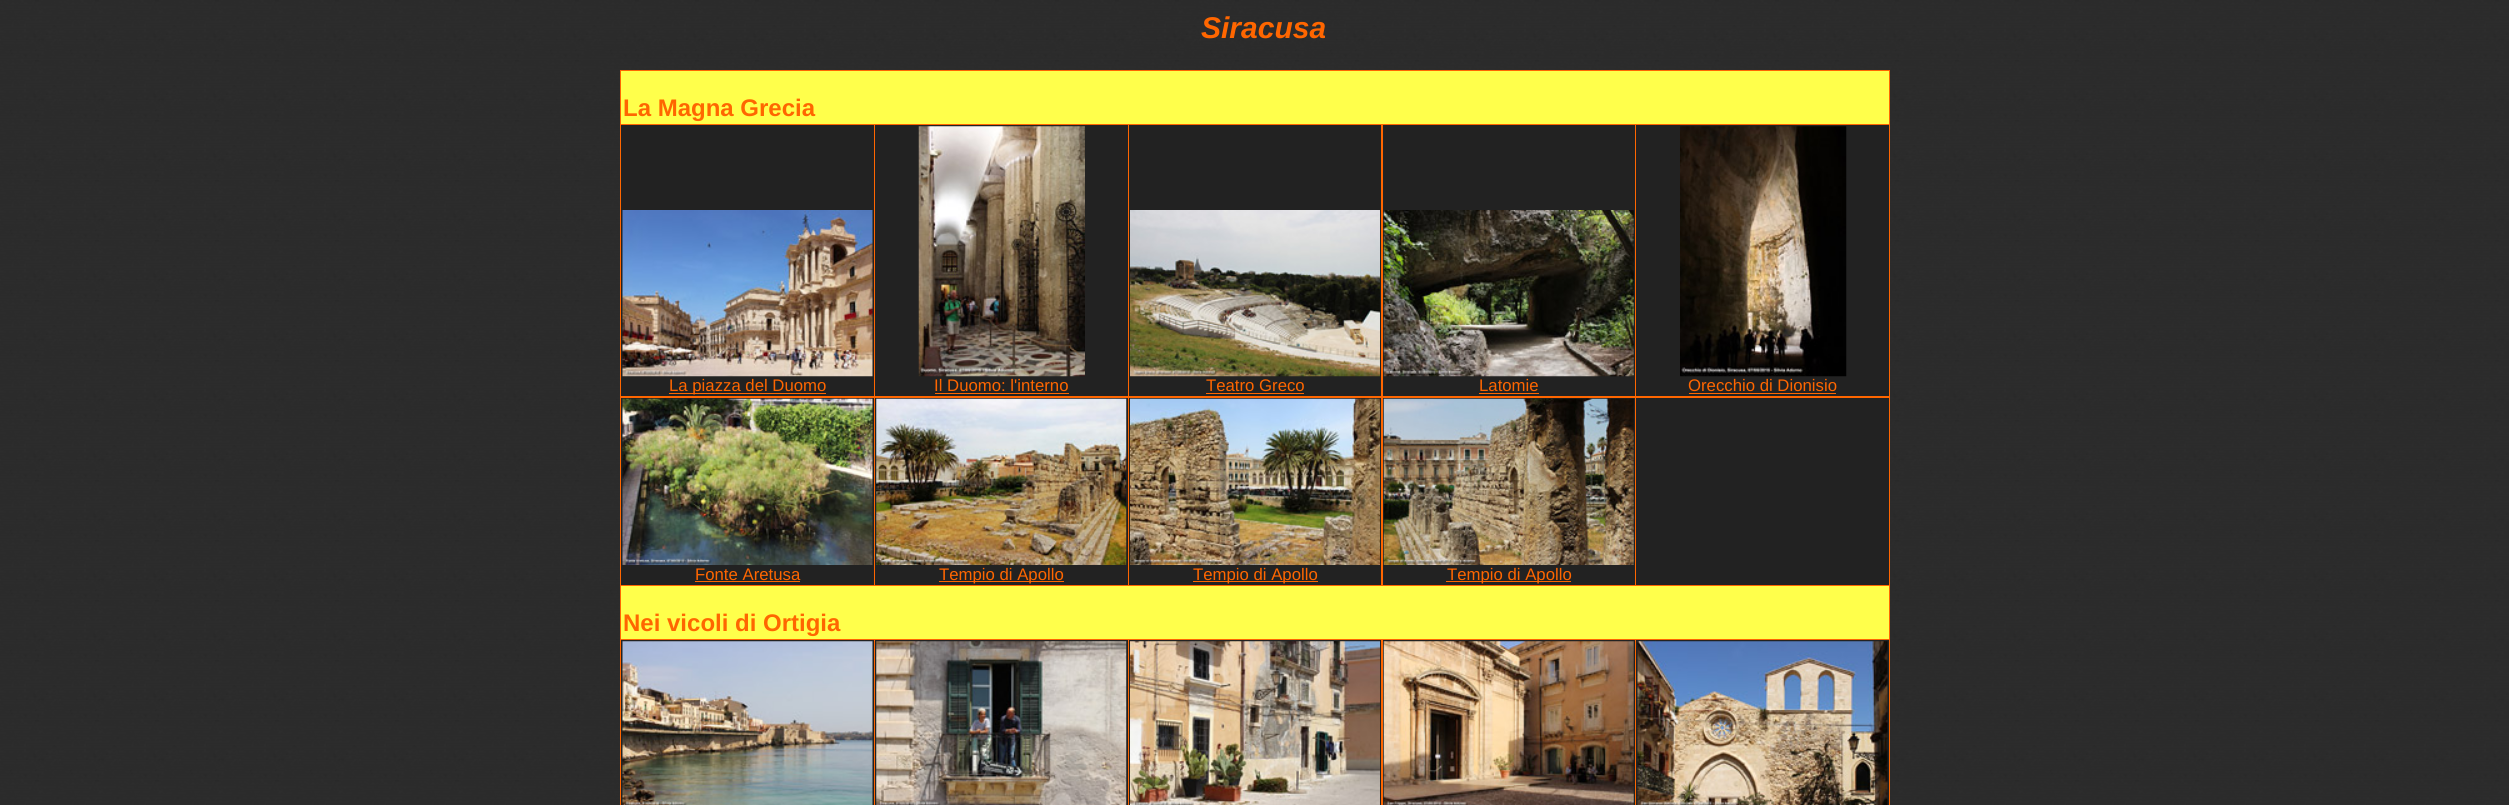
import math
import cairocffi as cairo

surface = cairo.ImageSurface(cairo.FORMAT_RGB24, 2509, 805)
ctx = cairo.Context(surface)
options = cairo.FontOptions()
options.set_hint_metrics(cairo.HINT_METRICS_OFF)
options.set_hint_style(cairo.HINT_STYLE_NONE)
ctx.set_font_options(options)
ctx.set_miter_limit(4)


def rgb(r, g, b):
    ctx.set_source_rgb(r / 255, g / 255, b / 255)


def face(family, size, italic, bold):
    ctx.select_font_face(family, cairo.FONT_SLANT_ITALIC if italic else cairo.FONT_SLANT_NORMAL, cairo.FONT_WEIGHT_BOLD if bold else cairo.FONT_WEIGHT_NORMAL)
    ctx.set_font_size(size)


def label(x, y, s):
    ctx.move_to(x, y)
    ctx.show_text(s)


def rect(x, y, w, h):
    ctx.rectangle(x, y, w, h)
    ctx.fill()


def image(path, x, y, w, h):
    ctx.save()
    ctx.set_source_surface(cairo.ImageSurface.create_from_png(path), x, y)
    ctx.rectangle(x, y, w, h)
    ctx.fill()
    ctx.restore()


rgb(255, 255, 255)
ctx.paint()
image('image0.png', 0, 0, 2509, 805)
face('Liberation Sans', 30, 1, 1)
rgb(255, 102, 0)
label(1201, 38, 'Siracusa')
rect(620, 70, 1270, 735)
rgb(255, 255, 75)
rect(621, 71, 1268, 53)
face('Liberation Sans', 24, 0, 1)
rgb(255, 102, 0)
label(623, 116, 'La Magna Grecia')
rgb(34, 34, 34)
rect(621, 125, 253, 271)
image('image1.png', 622, 210, 251, 167)
rgb(255, 102, 0)
rect(669, 393, 157, 1)
face('Liberation Sans', 16.75, 0, 0)
label(669, 391, 'La piazza del Duomo')
rgb(34, 34, 34)
rect(875, 125, 253, 271)
image('image2.png', 918, 126, 167, 251)
rgb(255, 102, 0)
label(934, 391, 'Il Duomo: l\'interno')
rect(935, 393, 134, 1)
rgb(34, 34, 34)
rect(1129, 125, 252, 271)
image('image3.png', 1130, 210, 250, 167)
rgb(255, 102, 0)
label(1206, 391, 'Teatro Greco')
rect(1206, 393, 98, 1)
rgb(34, 34, 34)
rect(1383, 125, 252, 271)
image('image4.png', 1383, 210, 251, 167)
rgb(255, 102, 0)
label(1479, 391, 'Latomie')
rect(1479, 393, 60, 1)
rgb(34, 34, 34)
rect(1636, 125, 253, 271)
image('image5.png', 1680, 126, 167, 251)
rgb(255, 102, 0)
label(1688, 391, 'Orecchio di Dionisio')
rect(1689, 393, 147, 1)
rgb(34, 34, 34)
rect(621, 398, 253, 187)
image('image6.png', 622, 398, 251, 167)
rgb(255, 102, 0)
label(695, 580, 'Fonte Aretusa')
rect(695, 581, 105, 1)
rgb(34, 34, 34)
rect(875, 398, 253, 187)
image('image7.png', 876, 398, 251, 167)
rgb(255, 102, 0)
rect(939, 581, 125, 1)
label(939, 580, 'Tempio di Apollo')
rgb(34, 34, 34)
rect(1129, 398, 252, 187)
image('image8.png', 1130, 398, 250, 167)
rgb(255, 102, 0)
rect(1193, 581, 125, 1)
label(1193, 580, 'Tempio di Apollo')
rgb(34, 34, 34)
rect(1383, 398, 252, 187)
image('image9.png', 1383, 398, 251, 167)
rgb(255, 102, 0)
rect(1446, 581, 125, 1)
label(1447, 580, 'Tempio di Apollo')
rgb(34, 34, 34)
rect(1636, 398, 253, 187)
rgb(255, 255, 75)
rect(621, 586, 1268, 53)
face('Liberation Sans', 24, 0, 1)
rgb(255, 102, 0)
label(623, 631, 'Nei vicoli di Ortigia')
rgb(34, 34, 34)
rect(621, 640, 253, 165)
image('image10.png', 622, 641, 251, 164)
rect(875, 640, 253, 165)
image('image11.png', 876, 641, 251, 164)
rect(1129, 640, 252, 165)
image('image12.png', 1130, 641, 250, 164)
rect(1383, 640, 252, 165)
image('image13.png', 1383, 641, 251, 164)
rect(1636, 640, 253, 165)
image('image14.png', 1637, 641, 251, 164)
surface.write_to_png('render.png')
